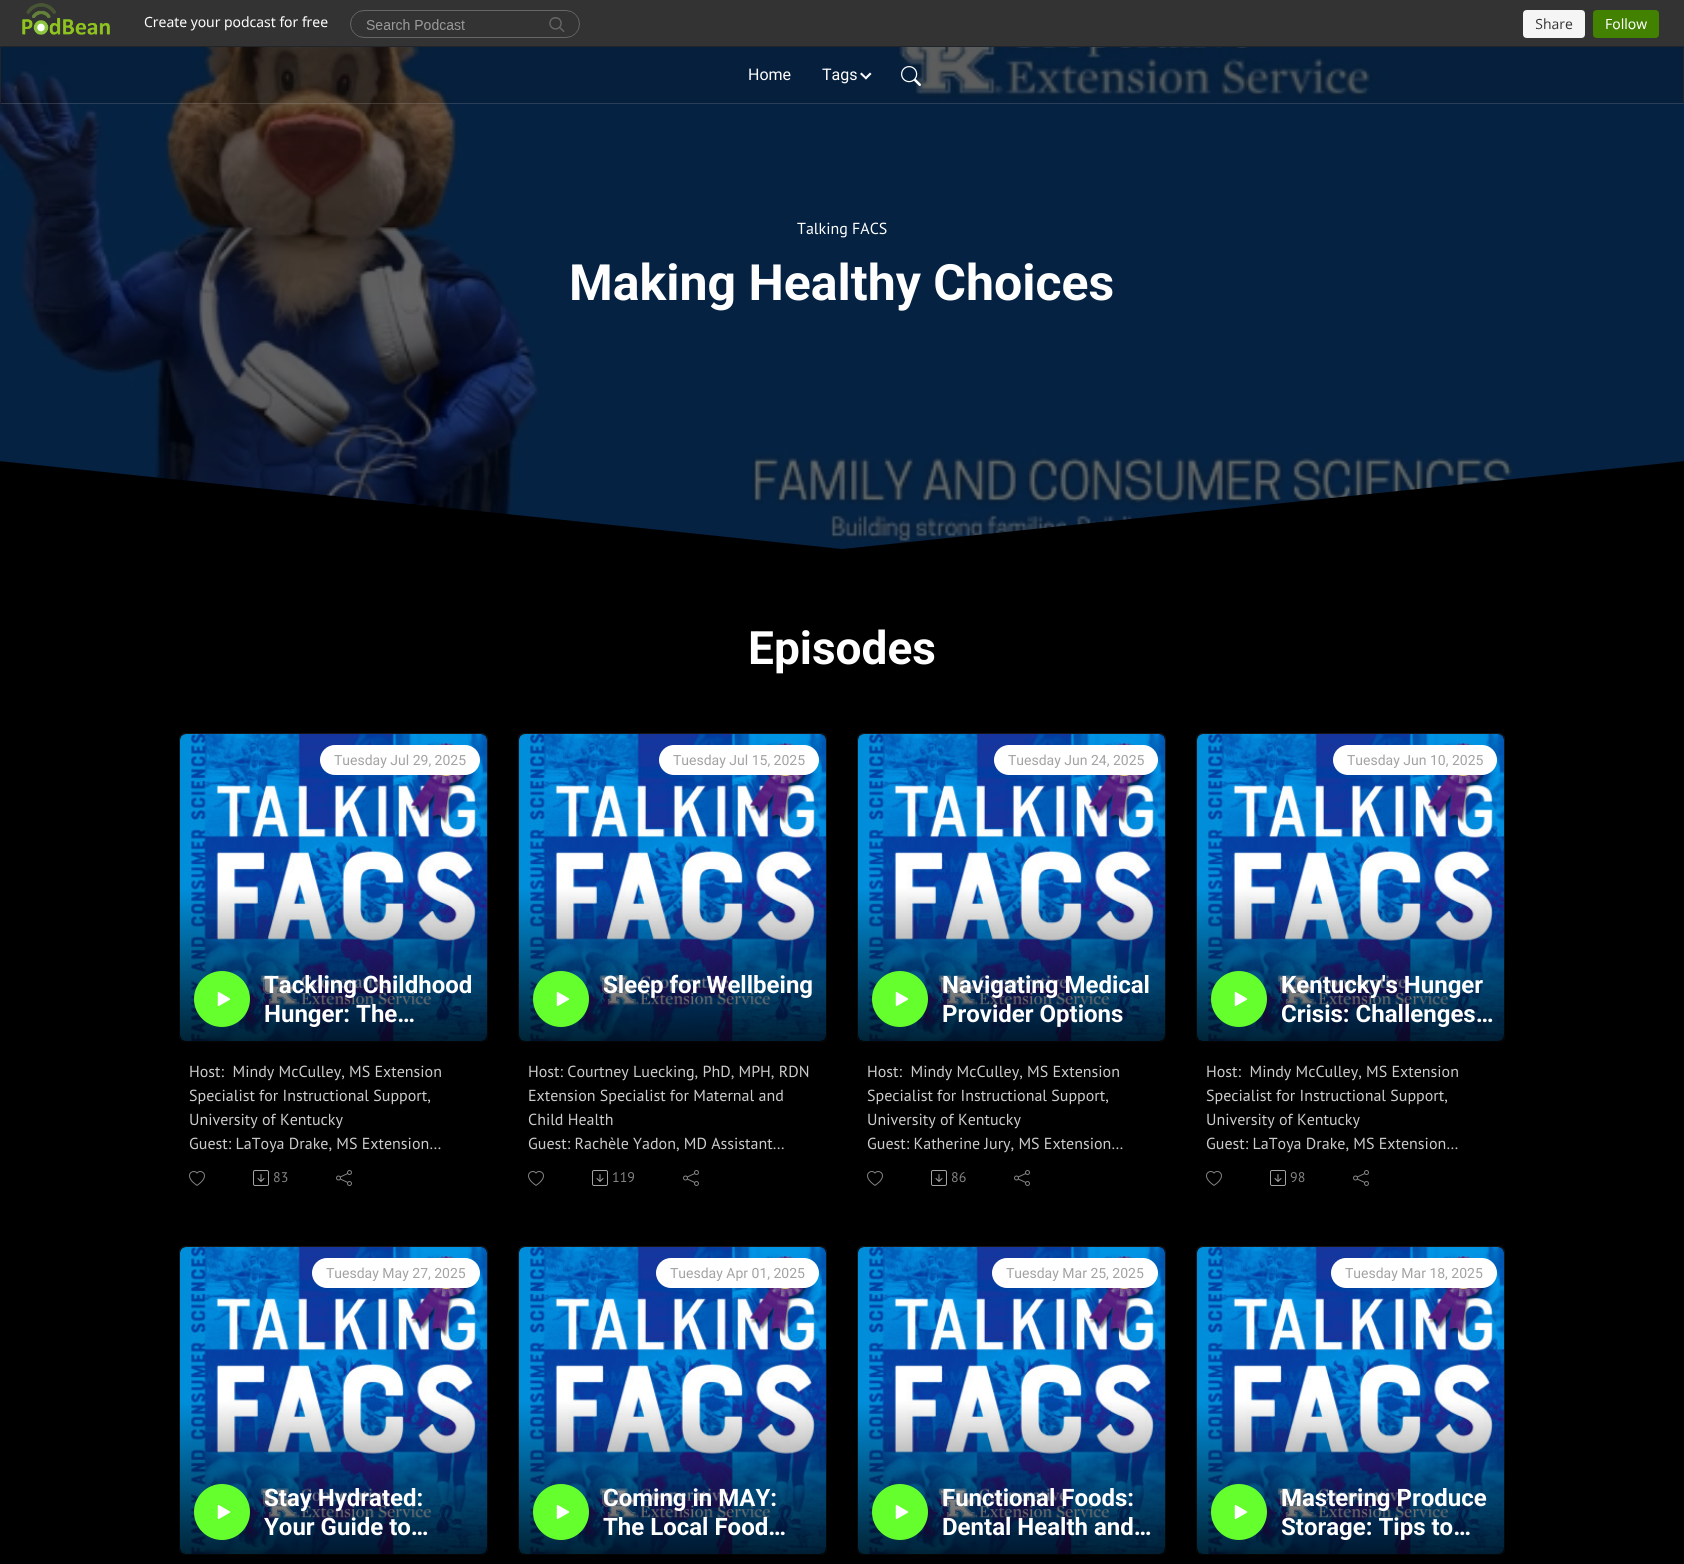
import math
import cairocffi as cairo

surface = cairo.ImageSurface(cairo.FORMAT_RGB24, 1684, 1564)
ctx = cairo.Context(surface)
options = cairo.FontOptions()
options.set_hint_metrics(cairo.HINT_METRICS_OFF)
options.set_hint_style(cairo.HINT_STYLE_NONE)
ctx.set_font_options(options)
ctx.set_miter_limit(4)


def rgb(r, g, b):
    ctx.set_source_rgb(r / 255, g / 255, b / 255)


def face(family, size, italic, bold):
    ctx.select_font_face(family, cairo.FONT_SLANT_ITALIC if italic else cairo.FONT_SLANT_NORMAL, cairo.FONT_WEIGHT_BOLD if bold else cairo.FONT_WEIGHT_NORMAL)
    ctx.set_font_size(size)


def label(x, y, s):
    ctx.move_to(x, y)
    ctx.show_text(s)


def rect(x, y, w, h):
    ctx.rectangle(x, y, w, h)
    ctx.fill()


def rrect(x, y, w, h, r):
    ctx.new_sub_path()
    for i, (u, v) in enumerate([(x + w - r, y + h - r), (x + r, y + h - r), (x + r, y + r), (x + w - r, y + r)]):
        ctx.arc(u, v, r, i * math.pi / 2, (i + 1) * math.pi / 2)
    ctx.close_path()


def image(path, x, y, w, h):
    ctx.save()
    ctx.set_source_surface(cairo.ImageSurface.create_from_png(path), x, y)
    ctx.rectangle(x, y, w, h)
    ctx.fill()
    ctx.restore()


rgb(0, 0, 0)
ctx.paint()
rgb(51, 51, 51)
rect(0, 0, 1684, 46)
image('image0.png', 22, 3, 1637, 35)
image('image2.png', 0, 47, 1684, 502)
ctx.set_source_rgba(0, 0, 0, 0.09)
rect(0, 47, 1684, 57)
rgb(33, 37, 41)
rect(0, 46, 1684, 1)
ctx.new_path()
ctx.move_to(1684, 46)
ctx.line_to(1684, 104)
ctx.line_to(1683, 103)
ctx.line_to(1683, 47)
ctx.close_path()
ctx.fill()
ctx.set_source_rgba(1, 1, 1, 0.15)
ctx.new_path()
ctx.move_to(1684, 104)
ctx.line_to(0, 104)
ctx.line_to(1, 103)
ctx.line_to(1683, 103)
ctx.close_path()
ctx.fill()
rgb(33, 37, 41)
ctx.new_path()
ctx.move_to(0, 104)
ctx.line_to(0, 46)
ctx.line_to(1, 47)
ctx.line_to(1, 103)
ctx.close_path()
ctx.fill()
face('Roboto', 16, 0, 0)
rgb(255, 255, 255)
label(748, 80, 'Home')
label(822, 80, 'Tags')
ctx.new_path()
ctx.move_to(870, 72.5)
ctx.line_to(871.5, 74)
ctx.line_to(866, 79.5)
ctx.line_to(864.5, 78)
ctx.close_path()
ctx.fill()
ctx.new_path()
ctx.move_to(861.5, 72.5)
ctx.line_to(867, 78)
ctx.line_to(866, 79.5)
ctx.line_to(860, 74)
ctx.close_path()
ctx.fill()
image('image1.png', 901, 66, 20, 20)
face('PT Sans', 16, 0, 0)
label(797, 234, 'Talking FACS')
face('Roboto', 50, 0, 1)
label(569, 300, 'Making Healthy Choices')
rgb(0, 0, 0)
ctx.new_path()
ctx.move_to(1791, 621)
ctx.line_to(-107, 621)
ctx.line_to(-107, 450)
ctx.line_to(842, 549)
ctx.line_to(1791, 450)
ctx.close_path()
ctx.fill()
face('Roboto', 46, 0, 1)
rgb(255, 255, 255)
label(748, 664, 'Episodes')
rrect(179.5, 733.5, 308, 308, 5.5)
rgb(21, 21, 21)
ctx.set_line_width(1)
ctx.stroke()
image('image3.png', 180, 734, 307, 307)
rgb(255, 255, 255)
rrect(320, 745, 160, 30, 15)
ctx.fill()
face('Roboto', 14, 0, 0)
rgb(163, 163, 163)
label(334, 765, 'Tuesday Jul 29, 2025')
gradient = cairo.LinearGradient(334, 888, 334, 1042)
gradient.add_color_stop_rgba(0, 0, 0, 0, 0)
gradient.add_color_stop_rgba(1, 0, 0, 0, 0.75)
ctx.set_source(gradient)
rrect(179, 888, 309, 154, 6)
ctx.fill()
rgb(100, 255, 44)
ctx.arc(222, 999, 28, 0, 2 * math.pi)
ctx.fill()
image('image4.png', 217, 992, 14, 15)
face('Roboto', 24, 0, 1)
rgb(255, 255, 255)
label(264, 993, 'Tackling Childhood')
label(264, 1022, 'Hunger: The…')
face('PT Sans', 16, 0, 0)
rgb(204, 204, 204)
label(189, 1077, 'Host:  Mindy McCulley, MS Extension')
label(189, 1101, 'Specialist for Instructional Support,')
label(189, 1125, 'University of Kentucky')
label(189, 1149, 'Guest: LaToya Drake, MS Extension…')
image('image5.png', 189, 1171, 16, 15)
image('image6.png', 253, 1170, 16, 16)
face('PT Sans', 14, 0, 0)
rgb(131, 131, 131)
label(273, 1182, '83')
image('image7.png', 336, 1170, 16, 16)
rrect(518.5, 733.5, 308, 308, 5.5)
rgb(21, 21, 21)
ctx.stroke()
image('image8.png', 519, 734, 307, 307)
rgb(255, 255, 255)
rrect(659, 745, 160, 30, 15)
ctx.fill()
face('Roboto', 14, 0, 0)
rgb(163, 163, 163)
label(673, 765, 'Tuesday Jul 15, 2025')
gradient = cairo.LinearGradient(673, 888, 673, 1042)
gradient.add_color_stop_rgba(0, 0, 0, 0, 0)
gradient.add_color_stop_rgba(1, 0, 0, 0, 0.75)
ctx.set_source(gradient)
rrect(518, 888, 309, 154, 6)
ctx.fill()
rgb(100, 255, 44)
ctx.arc(561, 999, 28, 0, 2 * math.pi)
ctx.fill()
image('image4.png', 556, 992, 14, 15)
face('Roboto', 24, 0, 1)
rgb(255, 255, 255)
label(603, 993, 'Sleep for Wellbeing')
face('PT Sans', 16, 0, 0)
rgb(204, 204, 204)
label(528, 1077, 'Host: Courtney Luecking, PhD, MPH, RDN')
label(528, 1101, 'Extension Specialist for Maternal and')
label(528, 1125, 'Child Health')
label(528, 1149, 'Guest: Rachèle Yadon, MD Assistant…')
image('image5.png', 528, 1171, 16, 15)
image('image6.png', 592, 1170, 16, 16)
face('PT Sans', 14, 0, 0)
rgb(131, 131, 131)
label(612, 1182, '119')
image('image7.png', 683, 1170, 16, 16)
rrect(857.5, 733.5, 308, 308, 5.5)
rgb(21, 21, 21)
ctx.stroke()
image('image8.png', 858, 734, 307, 307)
rgb(255, 255, 255)
rrect(994, 745, 164, 30, 15)
ctx.fill()
face('Roboto', 14, 0, 0)
rgb(163, 163, 163)
label(1008, 765, 'Tuesday Jun 24, 2025')
gradient = cairo.LinearGradient(1012, 888, 1012, 1042)
gradient.add_color_stop_rgba(0, 0, 0, 0, 0)
gradient.add_color_stop_rgba(1, 0, 0, 0, 0.75)
ctx.set_source(gradient)
rrect(857, 888, 309, 154, 6)
ctx.fill()
rgb(100, 255, 44)
ctx.arc(900, 999, 28, 0, 2 * math.pi)
ctx.fill()
image('image4.png', 895, 992, 14, 15)
face('Roboto', 24, 0, 1)
rgb(255, 255, 255)
label(942, 993, 'Navigating Medical')
label(942, 1022, 'Provider Options')
face('PT Sans', 16, 0, 0)
rgb(204, 204, 204)
label(867, 1077, 'Host:  Mindy McCulley, MS Extension')
label(867, 1101, 'Specialist for Instructional Support,')
label(867, 1125, 'University of Kentucky')
label(867, 1149, 'Guest: Katherine Jury, MS Extension…')
image('image5.png', 867, 1171, 16, 15)
image('image6.png', 931, 1170, 16, 16)
face('PT Sans', 14, 0, 0)
rgb(131, 131, 131)
label(951, 1182, '86')
image('image7.png', 1014, 1170, 16, 16)
rrect(1196.5, 733.5, 308, 308, 5.5)
rgb(21, 21, 21)
ctx.stroke()
image('image9.png', 1197, 734, 307, 307)
rgb(255, 255, 255)
rrect(1333, 745, 164, 30, 15)
ctx.fill()
face('Roboto', 14, 0, 0)
rgb(163, 163, 163)
label(1347, 765, 'Tuesday Jun 10, 2025')
gradient = cairo.LinearGradient(1351, 888, 1351, 1042)
gradient.add_color_stop_rgba(0, 0, 0, 0, 0)
gradient.add_color_stop_rgba(1, 0, 0, 0, 0.75)
ctx.set_source(gradient)
rrect(1196, 888, 309, 154, 6)
ctx.fill()
rgb(100, 255, 44)
ctx.arc(1239, 999, 28, 0, 2 * math.pi)
ctx.fill()
image('image4.png', 1234, 992, 14, 15)
face('Roboto', 24, 0, 1)
rgb(255, 255, 255)
label(1281, 993, 'Kentucky\'s Hunger')
label(1281, 1022, 'Crisis: Challenges…')
face('PT Sans', 16, 0, 0)
rgb(204, 204, 204)
label(1206, 1077, 'Host:  Mindy McCulley, MS Extension')
label(1206, 1101, 'Specialist for Instructional Support,')
label(1206, 1125, 'University of Kentucky')
label(1206, 1149, 'Guest: LaToya Drake, MS Extension…')
image('image5.png', 1206, 1171, 16, 15)
image('image6.png', 1270, 1170, 16, 16)
face('PT Sans', 14, 0, 0)
rgb(131, 131, 131)
label(1290, 1182, '98')
image('image7.png', 1353, 1170, 16, 16)
rrect(179.5, 1246.5, 308, 308, 5.5)
rgb(21, 21, 21)
ctx.stroke()
image('image10.png', 180, 1247, 307, 307)
rgb(255, 255, 255)
rrect(312, 1258, 168, 30, 15)
ctx.fill()
face('Roboto', 14, 0, 0)
rgb(163, 163, 163)
label(326, 1278, 'Tuesday May 27, 2025')
gradient = cairo.LinearGradient(334, 1401, 334, 1555)
gradient.add_color_stop_rgba(0, 0, 0, 0, 0)
gradient.add_color_stop_rgba(1, 0, 0, 0, 0.75)
ctx.set_source(gradient)
rrect(179, 1401, 309, 154, 6)
ctx.fill()
rgb(100, 255, 44)
ctx.arc(222, 1512, 28, 0, 2 * math.pi)
ctx.fill()
image('image4.png', 217, 1505, 14, 15)
face('Roboto', 24, 0, 1)
rgb(255, 255, 255)
label(264, 1506, 'Stay Hydrated:')
label(264, 1535, 'Your Guide to…')
rrect(518.5, 1246.5, 308, 308, 5.5)
rgb(21, 21, 21)
ctx.stroke()
image('image11.png', 519, 1247, 307, 307)
rgb(255, 255, 255)
rrect(656, 1258, 163, 30, 15)
ctx.fill()
face('Roboto', 14, 0, 0)
rgb(163, 163, 163)
label(670, 1278, 'Tuesday Apr 01, 2025')
gradient = cairo.LinearGradient(673, 1401, 673, 1555)
gradient.add_color_stop_rgba(0, 0, 0, 0, 0)
gradient.add_color_stop_rgba(1, 0, 0, 0, 0.75)
ctx.set_source(gradient)
rrect(518, 1401, 309, 154, 6)
ctx.fill()
rgb(100, 255, 44)
ctx.arc(561, 1512, 28, 0, 2 * math.pi)
ctx.fill()
image('image4.png', 556, 1505, 14, 15)
face('Roboto', 24, 0, 1)
rgb(255, 255, 255)
label(603, 1506, 'Coming in MAY:')
label(603, 1535, 'The Local Food…')
rrect(857.5, 1246.5, 308, 308, 5.5)
rgb(21, 21, 21)
ctx.stroke()
image('image11.png', 858, 1247, 307, 307)
rgb(255, 255, 255)
rrect(992, 1258, 166, 30, 15)
ctx.fill()
face('Roboto', 14, 0, 0)
rgb(163, 163, 163)
label(1006, 1278, 'Tuesday Mar 25, 2025')
gradient = cairo.LinearGradient(1012, 1401, 1012, 1555)
gradient.add_color_stop_rgba(0, 0, 0, 0, 0)
gradient.add_color_stop_rgba(1, 0, 0, 0, 0.75)
ctx.set_source(gradient)
rrect(857, 1401, 309, 154, 6)
ctx.fill()
rgb(100, 255, 44)
ctx.arc(900, 1512, 28, 0, 2 * math.pi)
ctx.fill()
image('image4.png', 895, 1505, 14, 15)
face('Roboto', 24, 0, 1)
rgb(255, 255, 255)
label(942, 1506, 'Functional Foods:')
label(942, 1535, 'Dental Health and…')
rrect(1196.5, 1246.5, 308, 308, 5.5)
rgb(21, 21, 21)
ctx.stroke()
image('image12.png', 1197, 1247, 307, 307)
rgb(255, 255, 255)
rrect(1331, 1258, 166, 30, 15)
ctx.fill()
face('Roboto', 14, 0, 0)
rgb(163, 163, 163)
label(1345, 1278, 'Tuesday Mar 18, 2025')
gradient = cairo.LinearGradient(1351, 1401, 1351, 1555)
gradient.add_color_stop_rgba(0, 0, 0, 0, 0)
gradient.add_color_stop_rgba(1, 0, 0, 0, 0.75)
ctx.set_source(gradient)
rrect(1196, 1401, 309, 154, 6)
ctx.fill()
rgb(100, 255, 44)
ctx.arc(1239, 1512, 28, 0, 2 * math.pi)
ctx.fill()
image('image4.png', 1234, 1505, 14, 15)
face('Roboto', 24, 0, 1)
rgb(255, 255, 255)
label(1281, 1506, 'Mastering Produce')
label(1281, 1535, 'Storage: Tips to…')
surface.write_to_png('render.png')
